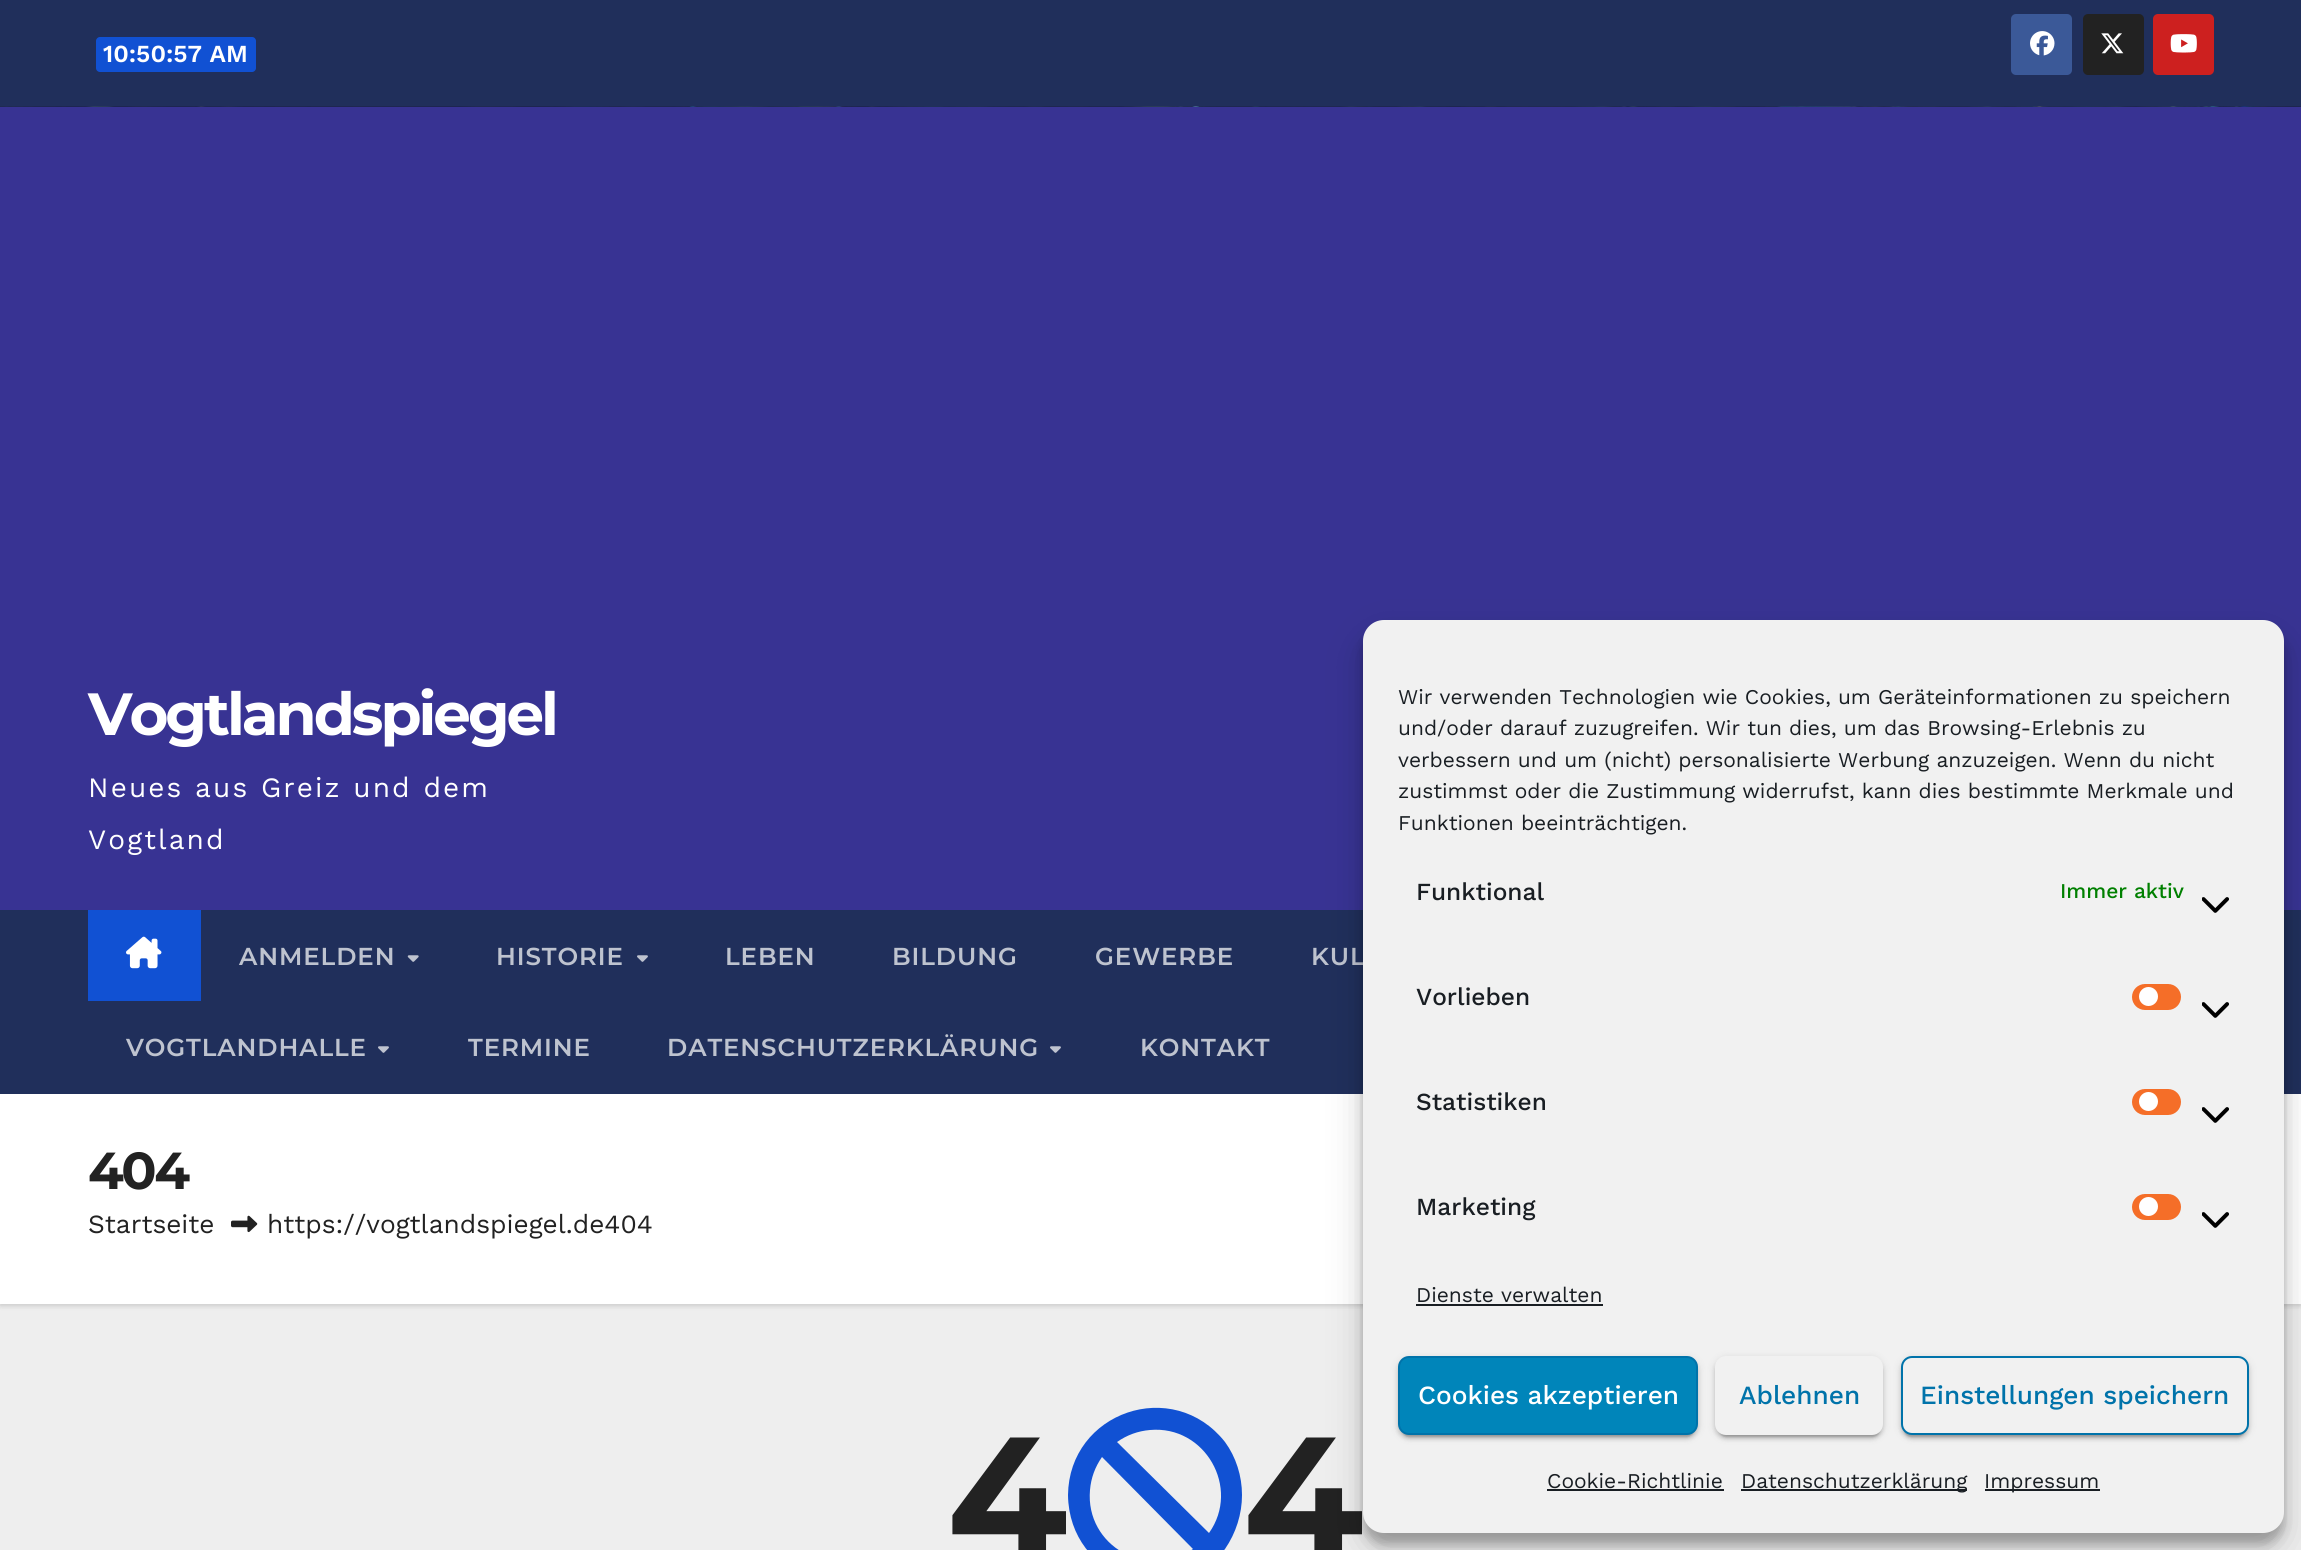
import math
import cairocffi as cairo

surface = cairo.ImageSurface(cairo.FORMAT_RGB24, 2301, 1550)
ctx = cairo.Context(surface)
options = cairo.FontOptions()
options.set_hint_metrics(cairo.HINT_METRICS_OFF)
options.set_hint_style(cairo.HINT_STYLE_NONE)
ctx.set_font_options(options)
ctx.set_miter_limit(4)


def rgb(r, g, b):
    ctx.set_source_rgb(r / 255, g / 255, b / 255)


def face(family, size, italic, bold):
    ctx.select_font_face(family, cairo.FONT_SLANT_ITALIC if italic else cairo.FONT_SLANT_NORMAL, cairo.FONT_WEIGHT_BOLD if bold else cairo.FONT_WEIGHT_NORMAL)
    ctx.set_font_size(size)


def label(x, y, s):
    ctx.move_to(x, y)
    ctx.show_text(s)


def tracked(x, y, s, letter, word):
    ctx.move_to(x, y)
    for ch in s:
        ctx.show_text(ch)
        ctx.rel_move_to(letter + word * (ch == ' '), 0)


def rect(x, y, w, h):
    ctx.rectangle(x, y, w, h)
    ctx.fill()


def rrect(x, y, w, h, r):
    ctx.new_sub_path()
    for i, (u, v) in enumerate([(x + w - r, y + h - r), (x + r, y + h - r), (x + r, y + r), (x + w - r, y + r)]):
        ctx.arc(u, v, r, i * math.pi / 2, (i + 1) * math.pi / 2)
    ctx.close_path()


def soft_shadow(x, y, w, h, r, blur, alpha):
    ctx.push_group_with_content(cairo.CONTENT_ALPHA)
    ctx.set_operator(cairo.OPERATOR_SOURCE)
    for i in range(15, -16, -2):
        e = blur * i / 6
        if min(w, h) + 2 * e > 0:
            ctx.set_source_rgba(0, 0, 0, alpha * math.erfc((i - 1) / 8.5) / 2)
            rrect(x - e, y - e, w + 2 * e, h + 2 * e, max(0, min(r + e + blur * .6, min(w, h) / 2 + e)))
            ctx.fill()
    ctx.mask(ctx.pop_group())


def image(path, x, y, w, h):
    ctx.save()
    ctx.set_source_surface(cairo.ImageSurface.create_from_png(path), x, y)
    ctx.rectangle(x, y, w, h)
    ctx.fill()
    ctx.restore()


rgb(238, 238, 238)
ctx.paint()
rgb(32, 47, 91)
rect(0, 0, 2301, 107)
rgb(17, 81, 211)
rrect(96, 37, 160, 35, 4)
ctx.fill()
face('Work Sans SemiBold', 24.5, 0, 0)
rgb(255, 255, 255)
label(103, 62, '10:50:57 AM')
rgb(59, 89, 152)
rrect(2011, 14, 61, 61, 5)
ctx.fill()
image('image0.png', 2030, 31, 25, 25)
rgb(34, 34, 34)
rrect(2083, 14, 61, 61, 5)
ctx.fill()
image('image1.png', 2101, 33, 23, 21)
rgb(205, 32, 31)
rrect(2153, 14, 61, 61, 5)
ctx.fill()
image('image2.png', 2170, 34, 27, 19)
image('image3.png', 0, 106, 2301, 1)
rgb(56, 51, 147)
rect(0, 107, 2301, 803)
face('Montserrat', 59.5, 0, 1)
rgb(255, 255, 255)
tracked(88, 735, 'Vogtlandspiegel', -3, 0)
face('Work Sans', 28, 0, 0)
tracked(88, 797, 'Neues aus Greiz und dem', 2.1, 0)
tracked(88, 849, 'Vogtland', 2.1, 0)
rgb(0, 0, 0)
soft_shadow(0, 1096, 2301, 210, 0, 2.5, 0.15)
rgb(32, 47, 91)
rect(0, 910, 2301, 184)
rgb(17, 81, 211)
rect(88, 910, 113, 91)
image('image4.png', 126, 936, 36, 33)
face('Montserrat SemiBold', 24.5, 0, 0)
rgb(190, 195, 207)
tracked(239, 965, 'ANMELDEN', 0.9, 0)
image('image5.png', 407, 955, 12, 7)
tracked(496, 965, 'HISTORIE', 0.9, 0)
image('image6.png', 637, 955, 11, 7)
tracked(725, 965, 'LEBEN', 0.9, 0)
tracked(892, 965, 'BILDUNG', 0.9, 0)
tracked(1095, 965, 'GEWERBE', 0.9, 0)
tracked(1311, 965, 'KUL', 0.9, 0)
tracked(126, 1056, 'VOGTLANDHALLE', 0.9, 0)
image('image6.png', 378, 1046, 11, 7)
tracked(468, 1056, 'TERMINE', 0.9, 0)
tracked(667, 1056, 'DATENSCHUTZERKLÄRUNG', 0.9, 0)
image('image6.png', 1050, 1046, 11, 7)
tracked(1140, 1056, 'KONTAKT', 0.9, 0)
rgb(255, 255, 255)
rect(0, 1094, 2301, 210)
face('Montserrat', 52, 0, 1)
rgb(34, 34, 34)
tracked(88, 1189, '404', -2.5, 0)
face('Work Sans', 26.25, 0, 0)
label(88, 1233, 'Startseite')
image('image7.png', 231, 1215, 27, 18)
label(267, 1233, 'https://vogtlandspiegel.de404')
face('Montserrat', 175, 0, 1)
tracked(947, 1560, '4', -9, 0)
rgb(17, 81, 211)
ctx.new_path()
ctx.move_to(1193, 1549)
ctx.line_to(1102, 1457)
ctx.curve_to(1095, 1467, 1091, 1478, 1090, 1490)
ctx.curve_to(1085, 1546, 1148, 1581, 1193, 1549)
ctx.close_path()
ctx.move_to(1209, 1533)
ctx.curve_to(1241, 1488, 1205, 1425, 1150, 1430)
ctx.curve_to(1138, 1431, 1127, 1435, 1117, 1442)
ctx.close_path()
ctx.move_to(1068, 1495)
ctx.curve_to(1069, 1412, 1173, 1376, 1225, 1442)
ctx.curve_to(1236, 1457, 1242, 1476, 1242, 1495)
ctx.curve_to(1242, 1514, 1236, 1533, 1225, 1549)
ctx.curve_to(1173, 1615, 1069, 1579, 1068, 1495)
ctx.close_path()
ctx.fill()
rgb(34, 34, 34)
tracked(1243, 1560, '4', -9, 0)
rgb(0, 0, 0)
soft_shadow(1363, 630, 921, 914, 21, 5, 0.23)
soft_shadow(1363, 637, 921, 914, 21, 17.5, 0.19)
rgb(241, 241, 241)
rrect(1363, 620, 921, 913, 21)
ctx.fill()
face('Work Sans', 21, 0, 0)
rgb(25, 30, 35)
label(1398, 704, 'Wir verwenden Technologien wie Cookies, um Geräteinformationen zu speichern')
label(1398, 735, 'und/oder darauf zuzugreifen. Wir tun dies, um das Browsing-Erlebnis zu')
label(1398, 767, 'verbessern und um (nicht) personalisierte Werbung anzuzeigen. Wenn du nicht')
label(1398, 798, 'zustimmst oder die Zustimmung widerrufst, kann dies bestimmte Merkmale und')
label(1398, 830, 'Funktionen beeinträchtigen.')
face('Work Sans Medium', 24.5, 0, 0)
label(1416, 900, 'Funktional')
face('Work Sans Medium', 21, 0, 0)
rgb(0, 128, 0)
label(2060, 898, 'Immer aktiv')
image('image8.png', 2202, 897, 27, 16)
face('Work Sans Medium', 24.5, 0, 0)
rgb(25, 30, 35)
label(1416, 1005, 'Vorlieben')
rgb(245, 110, 40)
rrect(2132, 984, 49, 26, 13)
ctx.fill()
rgb(255, 255, 255)
ctx.arc(2148.5, 996.5, 9.5, 0, 2 * math.pi)
ctx.fill()
image('image8.png', 2202, 1002, 27, 16)
rgb(25, 30, 35)
label(1416, 1110, 'Statistiken')
rgb(245, 110, 40)
rrect(2132, 1089, 49, 26, 13)
ctx.fill()
rgb(255, 255, 255)
ctx.arc(2148.5, 1101.5, 9.5, 0, 2 * math.pi)
ctx.fill()
image('image8.png', 2202, 1107, 27, 16)
rgb(25, 30, 35)
label(1416, 1215, 'Marketing')
rgb(245, 110, 40)
rrect(2132, 1194, 49, 26, 13)
ctx.fill()
rgb(255, 255, 255)
ctx.arc(2148.5, 1206.5, 9.5, 0, 2 * math.pi)
ctx.fill()
image('image8.png', 2202, 1212, 27, 16)
face('Work Sans', 21, 0, 0)
rgb(25, 30, 35)
label(1416, 1302, 'Dienste verwalten')
rect(1416, 1304, 187, 2)
rgb(0, 0, 0)
soft_shadow(1398, 1358, 300, 79, 11, 4.5, 0.12)
soft_shadow(1402, 1365, 292, 72, 7, 1, 0.2)
soft_shadow(1398, 1360, 300, 79, 11, 2, 0.14)
rgb(0, 133, 186)
rrect(1399, 1357, 298, 77, 10)
ctx.fill_preserve()
rgb(0, 115, 170)
ctx.stroke()
face('Work Sans Medium', 26.25, 0, 0)
rgb(255, 255, 255)
label(1418, 1404, 'Cookies akzeptieren')
rgb(0, 0, 0)
soft_shadow(1715, 1358, 168, 79, 11, 4.5, 0.12)
soft_shadow(1719, 1365, 161, 72, 7, 1, 0.2)
soft_shadow(1715, 1360, 168, 79, 11, 2, 0.14)
rgb(241, 241, 241)
rrect(1716, 1357, 166, 77, 10)
ctx.fill_preserve()
ctx.stroke()
rgb(0, 115, 170)
label(1739, 1404, 'Ablehnen')
rgb(0, 0, 0)
soft_shadow(1901, 1358, 348, 79, 11, 4.5, 0.12)
soft_shadow(1904, 1365, 341, 72, 7, 1, 0.2)
soft_shadow(1901, 1360, 348, 79, 11, 2, 0.14)
rgb(241, 241, 241)
rrect(1902, 1357, 346, 77, 10)
ctx.fill_preserve()
rgb(0, 115, 170)
ctx.stroke()
label(1920, 1404, 'Einstellungen speichern')
face('Work Sans', 21, 0, 0)
rgb(25, 30, 35)
label(1547, 1488, 'Cookie-Richtlinie')
rect(1547, 1489, 177, 2)
rect(1741, 1489, 226, 2)
label(1741, 1488, 'Datenschutzerklärung')
rect(1985, 1489, 115, 2)
label(1984, 1488, 'Impressum')
surface.write_to_png('render.png')
